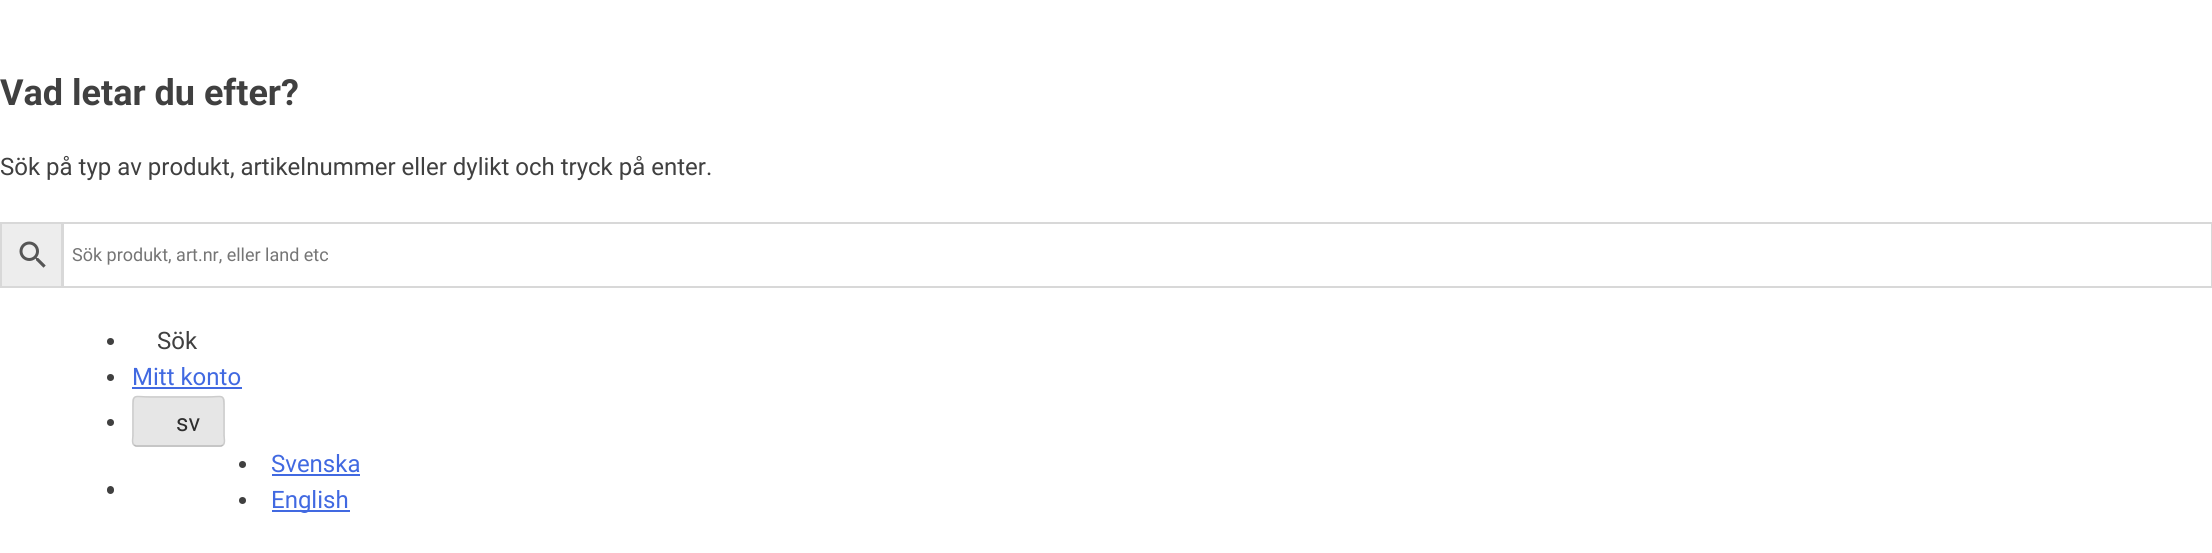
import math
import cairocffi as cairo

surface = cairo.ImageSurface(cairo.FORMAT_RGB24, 2212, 553)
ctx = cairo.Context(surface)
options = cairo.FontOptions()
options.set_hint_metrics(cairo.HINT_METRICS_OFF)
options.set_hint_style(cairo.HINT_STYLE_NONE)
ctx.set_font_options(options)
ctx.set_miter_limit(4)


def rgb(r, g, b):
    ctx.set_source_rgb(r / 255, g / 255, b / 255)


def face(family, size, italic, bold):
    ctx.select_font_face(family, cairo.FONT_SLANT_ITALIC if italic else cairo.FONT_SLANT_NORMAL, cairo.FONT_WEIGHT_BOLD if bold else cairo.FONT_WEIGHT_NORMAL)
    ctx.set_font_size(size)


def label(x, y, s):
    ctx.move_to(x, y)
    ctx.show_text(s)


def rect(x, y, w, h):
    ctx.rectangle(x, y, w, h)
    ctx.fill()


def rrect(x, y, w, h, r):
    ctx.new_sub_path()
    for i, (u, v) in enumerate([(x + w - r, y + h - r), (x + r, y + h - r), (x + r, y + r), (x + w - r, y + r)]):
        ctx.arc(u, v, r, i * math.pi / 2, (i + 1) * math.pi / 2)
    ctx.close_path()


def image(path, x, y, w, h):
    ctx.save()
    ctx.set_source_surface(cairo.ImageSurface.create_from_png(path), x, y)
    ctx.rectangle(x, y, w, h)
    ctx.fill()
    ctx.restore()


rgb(255, 255, 255)
ctx.paint()
face('Roboto', 36, 0, 1)
rgb(64, 64, 64)
label(0, 105, 'Vad letar du efter?')
face('Roboto', 24, 0, 0)
label(0, 175, 'Sök på typ av produkt, artikelnummer eller dylikt och tryck på enter.')
rgb(237, 237, 237)
ctx.rectangle(1, 223, 61, 64)
ctx.fill_preserve()
rgb(216, 216, 216)
ctx.stroke()
image('image0.png', 19, 241, 27, 27)
ctx.rectangle(63, 223, 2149, 64)
ctx.stroke()
face('Roboto', 18, 0, 0)
rgb(117, 117, 117)
label(72, 261, 'Sök produkt, art.nr, eller land etc')
rgb(64, 64, 64)
ctx.new_path()
ctx.arc(110.5, 341.5, 3.5, 0, 2 * math.pi)
ctx.fill()
face('Roboto', 24, 0, 0)
label(157, 349, 'Sök')
ctx.new_path()
ctx.arc(110.5, 377.5, 3.5, 0, 2 * math.pi)
ctx.fill()
rgb(65, 105, 225)
label(132, 385, 'Mitt konto')
rect(132, 387, 110, 2)
rgb(64, 64, 64)
rrect(107, 486, 7, 8, 3.5)
ctx.fill()
ctx.arc(110.5, 422.5, 3.5, 0, 2 * math.pi)
ctx.fill()
rgb(230, 230, 230)
rrect(132, 396, 93, 51, 5)
ctx.fill()
ctx.new_path()
ctx.move_to(223, 445)
ctx.line_to(221, 446)
ctx.line_to(136, 446)
ctx.line_to(134, 445)
rgb(187, 187, 187)
ctx.set_line_width(1.5)
ctx.stroke()
ctx.new_path()
ctx.move_to(134, 445)
ctx.curve_to(131.5, 443, 133, 437, 133, 435.5)
ctx.line_to(133, 407.5)
ctx.curve_to(133, 393, 134, 397, 150.5, 397)
ctx.line_to(206.5, 397)
ctx.curve_to(223, 397, 224, 393, 224, 407.5)
ctx.line_to(224, 435.5)
ctx.curve_to(224, 437, 225.5, 443, 223, 445)
rgb(204, 204, 204)
ctx.stroke()
rgb(46, 46, 46)
label(176, 431, 'sv')
rgb(64, 64, 64)
ctx.new_path()
ctx.arc(242.5, 464.5, 3.5, 0, 2 * math.pi)
ctx.fill()
rgb(65, 105, 225)
label(271, 472, 'Svenska')
rect(272, 474, 88, 2)
rgb(64, 64, 64)
ctx.new_path()
ctx.arc(242.5, 500.5, 3.5, 0, 2 * math.pi)
ctx.fill()
rgb(65, 105, 225)
rect(272, 510, 78, 2)
label(271, 508, 'English')
surface.write_to_png('render.png')
